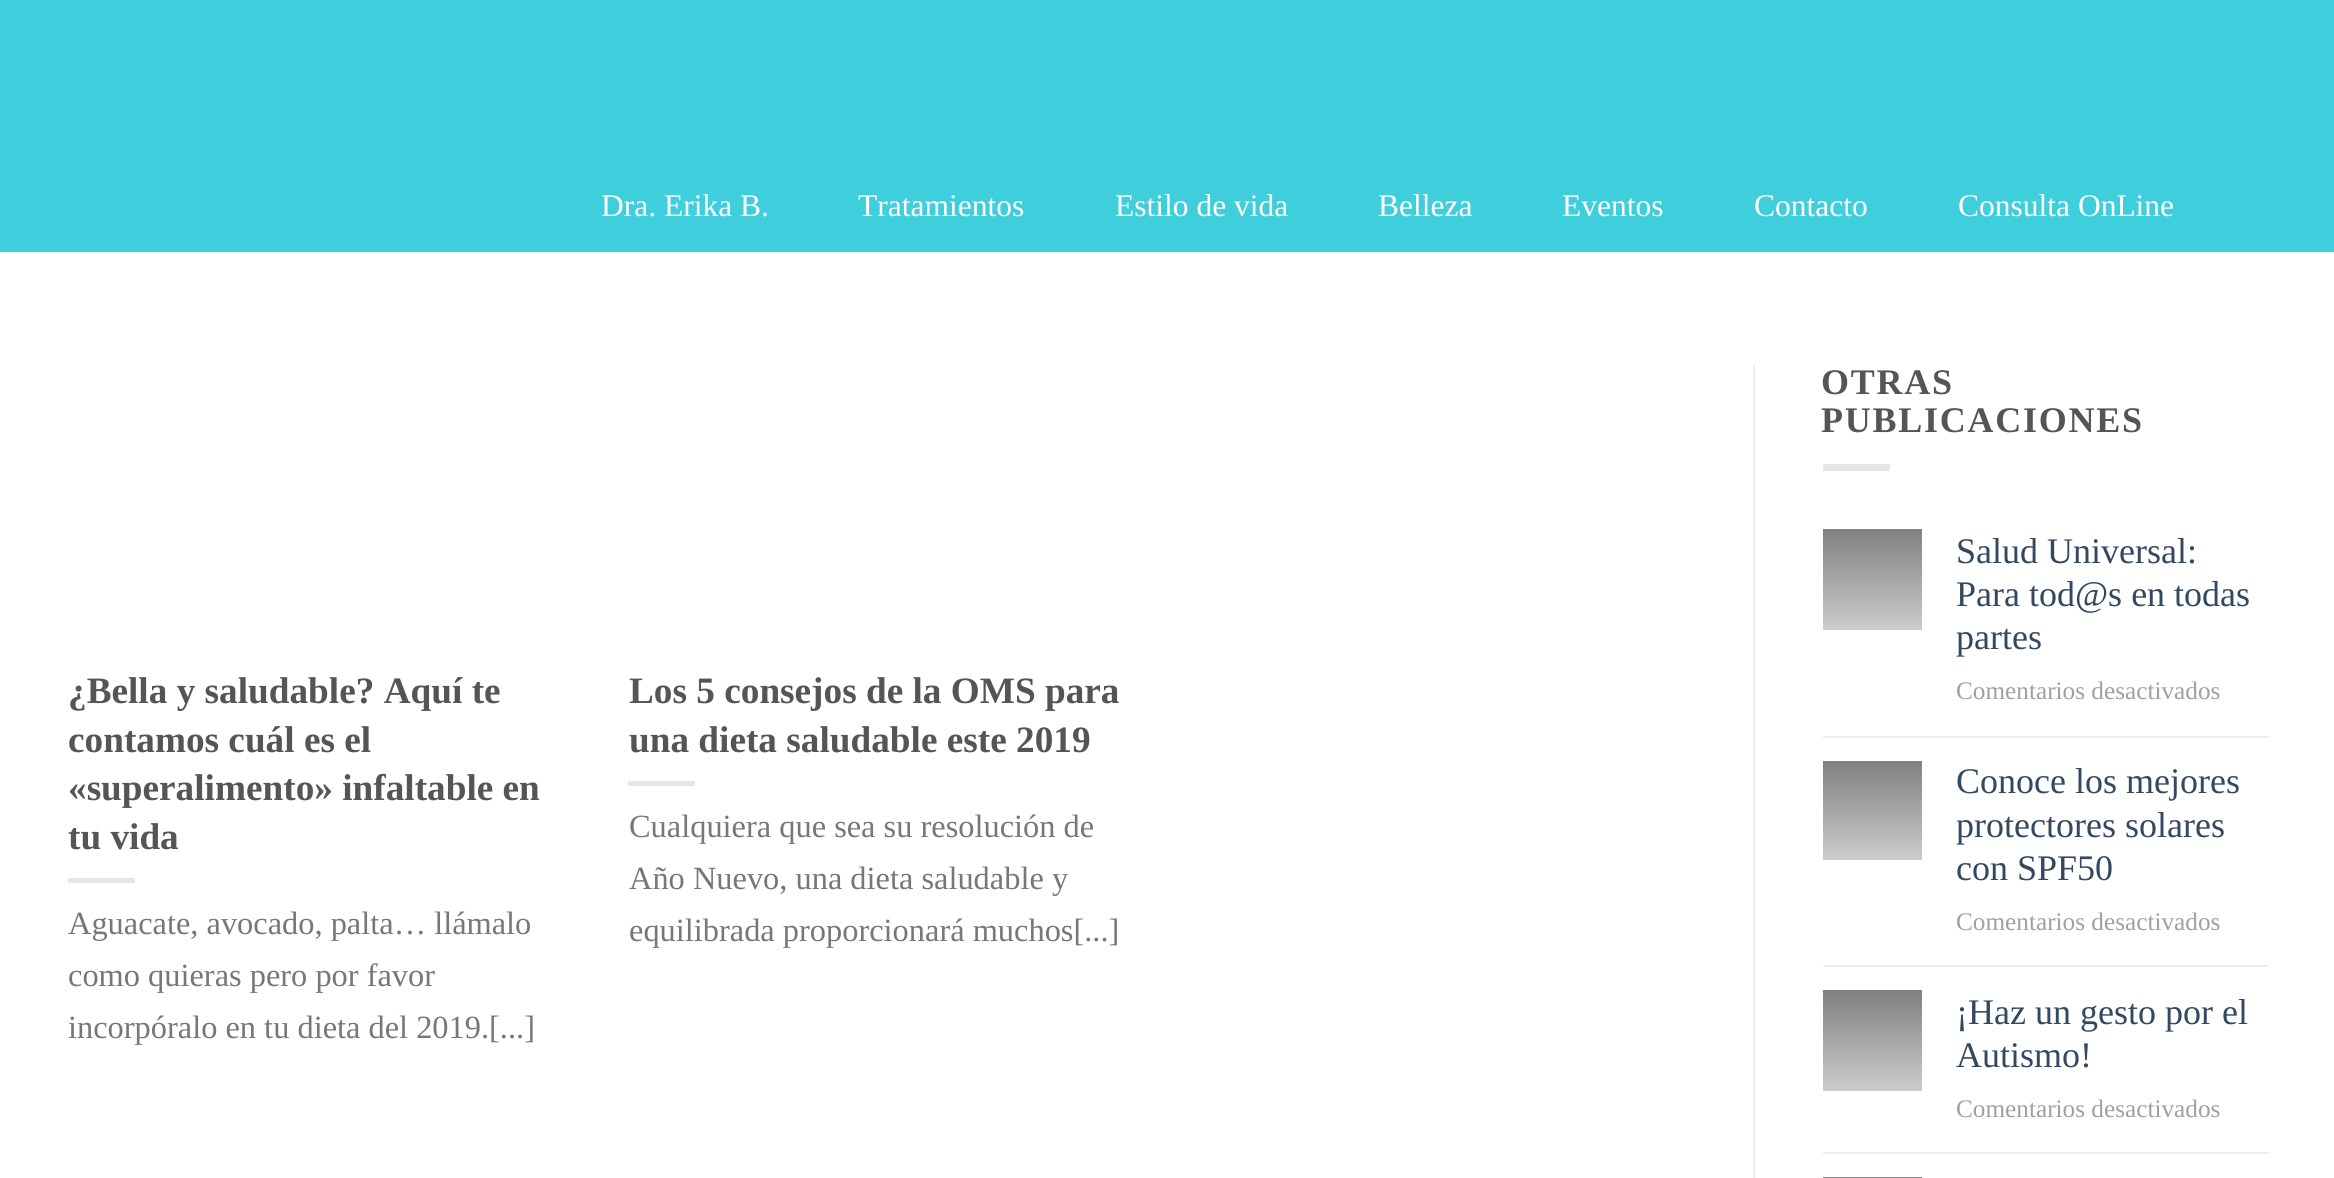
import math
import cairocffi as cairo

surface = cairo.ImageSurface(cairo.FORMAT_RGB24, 2334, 1178)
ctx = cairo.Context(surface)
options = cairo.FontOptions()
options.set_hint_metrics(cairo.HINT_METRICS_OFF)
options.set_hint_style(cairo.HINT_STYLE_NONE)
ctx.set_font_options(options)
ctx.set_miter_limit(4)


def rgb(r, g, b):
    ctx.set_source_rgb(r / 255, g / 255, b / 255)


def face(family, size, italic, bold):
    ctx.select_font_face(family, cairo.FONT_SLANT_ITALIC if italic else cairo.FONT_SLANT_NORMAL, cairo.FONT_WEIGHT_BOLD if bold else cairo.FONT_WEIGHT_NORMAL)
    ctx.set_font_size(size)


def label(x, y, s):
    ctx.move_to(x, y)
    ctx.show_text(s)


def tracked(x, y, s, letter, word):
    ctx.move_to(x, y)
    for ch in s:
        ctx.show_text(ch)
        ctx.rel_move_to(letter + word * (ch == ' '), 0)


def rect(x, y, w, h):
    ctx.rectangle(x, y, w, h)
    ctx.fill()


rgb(255, 255, 255)
ctx.paint()
rgb(63, 206, 219)
rect(0, 0, 2334, 252)
face('Liberation Serif', 31.5, 0, 0)
rgb(255, 255, 255)
label(601, 216, 'Dra. Erika B.')
label(858, 216, 'Tratamientos')
label(1115, 216, 'Estilo de vida')
label(1378, 216, 'Belleza')
label(1562, 216, 'Eventos')
label(1754, 216, 'Contacto')
label(1958, 216, 'Consulta OnLine')
face('Liberation Serif', 37.25, 0, 1)
rgb(85, 85, 85)
label(68, 703, '¿Bella y saludable? Aquí te')
label(68, 752, 'contamos cuál es el')
label(68, 800, '«superalimento» infaltable en')
label(68, 849, 'tu vida')
rgb(230, 230, 230)
rect(68, 878, 67, 5)
face('Liberation Serif', 32.4, 0, 0)
rgb(119, 119, 119)
label(68, 934, 'Aguacate, avocado, palta… llámalo')
label(68, 986, 'como quieras pero por favor')
label(68, 1038, 'incorpóralo en tu dieta del 2019.[...]')
face('Liberation Serif', 37.25, 0, 1)
rgb(85, 85, 85)
label(629, 703, 'Los 5 consejos de la OMS para')
label(629, 752, 'una dieta saludable este 2019')
rgb(230, 230, 230)
rect(628, 781, 67, 5)
face('Liberation Serif', 32.4, 0, 0)
rgb(119, 119, 119)
label(629, 837, 'Cualquiera que sea su resolución de')
label(629, 889, 'Año Nuevo, una dieta saludable y')
label(629, 941, 'equilibrada proporcionará muchos[...]')
rgb(236, 236, 236)
rect(1753, 365, 2, 813)
face('Liberation Serif', 36, 0, 1)
rgb(85, 85, 85)
tracked(1821, 394, 'OTRAS', 1.75, 0)
tracked(1821, 432, 'PUBLICACIONES', 1.75, 0)
rgb(230, 230, 230)
rect(1823, 464, 67, 7)
gradient = cairo.LinearGradient(1872, 529, 1872, 630)
gradient.add_color_stop_rgba(0, 0.502, 0.502, 0.502, 1)
gradient.add_color_stop_rgba(1, 0.8, 0.8, 0.8, 1)
ctx.set_source(gradient)
rect(1823, 529, 99, 101)
face('Liberation Serif', 36, 0, 0)
rgb(51, 72, 98)
label(1956, 563, 'Salud Universal:')
label(1956, 606, 'Para tod@s en todas')
label(1956, 649, 'partes')
face('Liberation Serif', 25.25, 0, 0)
rgb(160, 160, 160)
label(1956, 699, 'Comentarios desactivados')
rgb(236, 236, 236)
rect(1823, 736, 445, 2)
gradient = cairo.LinearGradient(1872, 761, 1872, 860)
gradient.add_color_stop_rgba(0, 0.502, 0.502, 0.502, 1)
gradient.add_color_stop_rgba(1, 0.8, 0.8, 0.8, 1)
ctx.set_source(gradient)
rect(1823, 761, 99, 99)
face('Liberation Serif', 36, 0, 0)
rgb(51, 72, 98)
label(1956, 793, 'Conoce los mejores')
label(1956, 837, 'protectores solares')
label(1956, 880, 'con SPF50')
face('Liberation Serif', 25.25, 0, 0)
rgb(160, 160, 160)
label(1956, 930, 'Comentarios desactivados')
rgb(236, 236, 236)
rect(1823, 965, 445, 2)
gradient = cairo.LinearGradient(1872, 990, 1872, 1091)
gradient.add_color_stop_rgba(0, 0.502, 0.502, 0.502, 1)
gradient.add_color_stop_rgba(1, 0.8, 0.8, 0.8, 1)
ctx.set_source(gradient)
rect(1823, 990, 99, 101)
face('Liberation Serif', 36, 0, 0)
rgb(51, 72, 98)
label(1956, 1024, '¡Haz un gesto por el')
label(1956, 1067, 'Autismo!')
face('Liberation Serif', 25.25, 0, 0)
rgb(160, 160, 160)
label(1956, 1117, 'Comentarios desactivados')
rgb(236, 236, 236)
rect(1823, 1152, 445, 2)
gradient = cairo.LinearGradient(1872, 1177, 1872, 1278)
gradient.add_color_stop_rgba(0, 0.502, 0.502, 0.502, 1)
gradient.add_color_stop_rgba(1, 0.8, 0.8, 0.8, 1)
ctx.set_source(gradient)
rect(1823, 1177, 99, 1)
surface.write_to_png('render.png')
